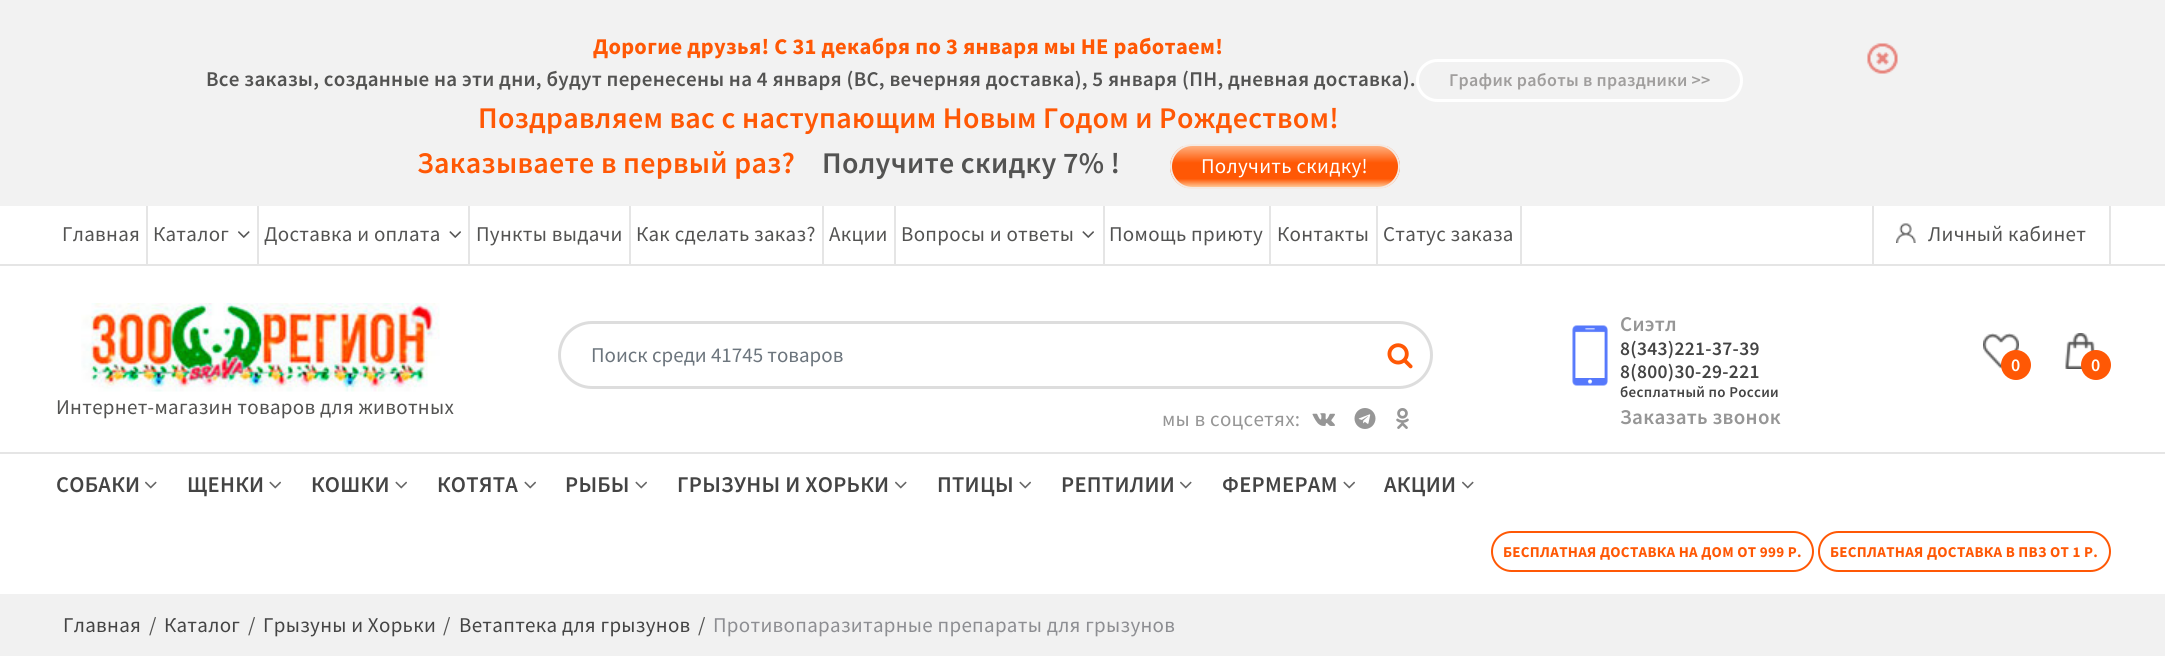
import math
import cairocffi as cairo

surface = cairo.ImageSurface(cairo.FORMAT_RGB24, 2165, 666)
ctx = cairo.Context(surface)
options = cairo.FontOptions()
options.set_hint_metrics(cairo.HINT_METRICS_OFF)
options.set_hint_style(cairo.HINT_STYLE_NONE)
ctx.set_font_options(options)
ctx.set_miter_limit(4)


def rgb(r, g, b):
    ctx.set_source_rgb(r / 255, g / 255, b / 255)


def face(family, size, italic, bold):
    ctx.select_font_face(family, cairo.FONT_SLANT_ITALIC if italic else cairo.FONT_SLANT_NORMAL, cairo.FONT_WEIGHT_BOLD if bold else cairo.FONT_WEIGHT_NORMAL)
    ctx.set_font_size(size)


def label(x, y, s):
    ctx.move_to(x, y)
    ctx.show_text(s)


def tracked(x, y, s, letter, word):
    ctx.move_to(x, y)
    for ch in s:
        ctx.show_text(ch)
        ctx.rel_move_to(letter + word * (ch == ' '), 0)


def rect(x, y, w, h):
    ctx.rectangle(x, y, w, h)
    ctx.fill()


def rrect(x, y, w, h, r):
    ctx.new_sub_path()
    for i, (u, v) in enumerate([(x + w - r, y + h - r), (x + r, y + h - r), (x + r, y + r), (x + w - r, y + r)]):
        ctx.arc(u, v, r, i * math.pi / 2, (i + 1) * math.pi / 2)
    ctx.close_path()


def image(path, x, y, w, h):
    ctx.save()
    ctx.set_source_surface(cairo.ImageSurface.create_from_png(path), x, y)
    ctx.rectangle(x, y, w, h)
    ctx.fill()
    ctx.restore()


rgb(255, 255, 255)
ctx.paint()
rgb(242, 242, 242)
rect(0, 0, 2165, 206)
face('Source Sans Pro', 22.5, 0, 1)
rgb(255, 88, 5)
tracked(593, 54, 'Дорогие друзья! С 31 декабря по 3 января мы НЕ работаем!', 0.3, 0)
face('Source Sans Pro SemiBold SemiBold', 21, 0, 0)
rgb(83, 83, 82)
tracked(206, 86, 'Все заказы, созданные на эти дни, будут перенесены на 4 января (ВС, вечерняя доставка), 5 января (ПН, дневная доставка).', 0.3, 0)
rrect(1417.5, 60.5, 324, 40, 20)
rgb(255, 255, 255)
ctx.set_line_width(3)
ctx.stroke()
face('Source Sans Pro SemiBold SemiBold', 18, 0, 0)
rgb(160, 158, 157)
tracked(1449, 86, 'График работы в праздники >>', 0.3, 0)
face('Source Sans Pro SemiBold SemiBold', 30, 0, 0)
rgb(255, 88, 5)
tracked(478, 128, 'Поздравляем вас с наступающим Новым Годом и Рождеством!', 0.3, 0)
tracked(417, 173, 'Заказываете в первый раз?', 0.3, 0)
rgb(83, 83, 82)
tracked(822, 173, 'Получите скидку 7% !', 0.3, 0)
ctx.save()
rrect(1170, 144, 230, 45, 22.5)
ctx.clip()
gradient = cairo.LinearGradient(1285, 188, 1285, 146)
gradient.add_color_stop_rgba(0, 1, 0.831, 0.651, 1)
gradient.add_color_stop_rgba(0.22, 1, 0.345, 0.02, 1)
gradient.add_color_stop_rgba(0.6, 1, 0.345, 0.02, 1)
gradient.add_color_stop_rgba(1, 1, 0.69, 0.498, 1)
ctx.set_source(gradient)
rect(1170, 146, 230, 42)
ctx.restore()
rrect(1171, 145, 228, 43, 21.5)
rgb(244, 234, 228)
ctx.set_line_width(2)
ctx.stroke()
face('Source Sans Pro', 21, 0, 0)
rgb(255, 255, 255)
tracked(1201, 173, 'Получить скидку!', 0.3, 0)
image('image0.png', 1867, 43, 31, 31)
rgb(229, 229, 229)
rect(0, 264, 2165, 2)
rect(146, 206, 2, 60)
rgb(83, 83, 82)
tracked(62, 241, 'Главная', 0.3, 0)
rgb(229, 229, 229)
rect(257, 206, 2, 60)
rgb(83, 83, 82)
tracked(153, 241, 'Каталог', 0.3, 0)
image('image1.png', 238, 231, 12, 7)
rgb(229, 229, 229)
rect(468, 206, 2, 60)
rgb(83, 83, 82)
tracked(264, 241, 'Доставка и оплата', 0.3, 0)
image('image2.png', 449, 231, 12, 7)
rgb(229, 229, 229)
rect(629, 206, 2, 60)
rgb(83, 83, 82)
tracked(476, 241, 'Пункты выдачи', 0.3, 0)
rgb(229, 229, 229)
rect(822, 206, 2, 60)
rgb(83, 83, 82)
tracked(636, 241, 'Как сделать заказ?', 0.3, 0)
rgb(229, 229, 229)
rect(894, 206, 2, 60)
rgb(83, 83, 82)
tracked(829, 241, 'Акции', 0.3, 0)
rgb(229, 229, 229)
rect(1103, 206, 2, 60)
rgb(83, 83, 82)
tracked(901, 241, 'Вопросы и ответы', 0.3, 0)
image('image2.png', 1082, 231, 12, 7)
rgb(229, 229, 229)
rect(1269, 206, 2, 60)
rgb(83, 83, 82)
tracked(1109, 241, 'Помощь приюту', 0.3, 0)
rgb(229, 229, 229)
rect(1376, 206, 2, 60)
rgb(83, 83, 82)
tracked(1277, 241, 'Контакты', 0.3, 0)
rgb(229, 229, 229)
rect(1520, 206, 2, 60)
rgb(83, 83, 82)
tracked(1383, 241, 'Статус заказа', 0.3, 0)
rgb(229, 229, 229)
rect(2109, 206, 2, 60)
rect(1872, 206, 2, 60)
image('image3.png', 1896, 223, 20, 20)
rgb(83, 83, 82)
tracked(1928, 241, 'Личный кабинет', 0.3, 0)
rgb(229, 229, 229)
rect(0, 452, 2165, 2)
image('image4.png', 81, 303, 359, 89)
rgb(83, 83, 82)
tracked(56, 414, 'Интернет-магазин товаров для животных', 0.3, 0)
rrect(559.5, 322.5, 872, 65, 32.5)
rgb(221, 221, 221)
ctx.set_line_width(3)
ctx.stroke()
rgb(108, 117, 125)
label(591, 362, 'Поиск среди 41745 товаров')
image('image5.png', 1387, 343, 26, 26)
rgb(150, 150, 150)
tracked(1162, 426, 'мы в соцсетях:', 0.3, 0)
image('image6.png', 1312, 413, 23, 13)
image('image7.png', 1354, 408, 22, 21)
image('image8.png', 1396, 408, 13, 21)
image('image9.png', 1572, 325, 36, 61)
face('Source Sans Pro SemiBold SemiBold', 21, 0, 0)
tracked(1620, 331, 'Сиэтл', 0.3, 0)
face('Source Sans Pro SemiBold SemiBold', 19.5, 0, 0)
rgb(68, 68, 68)
tracked(1620, 355, '8(343)221-37-39', 0.3, 0)
tracked(1620, 378, '8(800)30-29-221', 0.3, 0)
face('Source Sans Pro SemiBold SemiBold', 15, 0, 0)
tracked(1620, 397, 'бесплатный по России', 0.3, 0)
face('Source Sans Pro SemiBold SemiBold', 21, 0, 0)
rgb(150, 150, 150)
tracked(1620, 424, 'Заказать звонок', 0.3, 0)
image('image10.png', 1983, 333, 36, 36)
rgb(255, 88, 5)
ctx.arc(2016, 365, 15, 0, 2 * math.pi)
ctx.fill()
face('Source Sans Pro SemiBold SemiBold', 18, 0, 0)
rgb(255, 255, 255)
tracked(2011, 371, '0', 0.3, 0)
image('image11.png', 2065, 333, 30, 36)
rgb(255, 88, 5)
ctx.arc(2096, 365, 15, 0, 2 * math.pi)
ctx.fill()
rgb(255, 255, 255)
tracked(2091, 371, '0', 0.3, 0)
face('Source Sans Pro SemiBold SemiBold', 22.5, 0, 0)
rgb(68, 68, 68)
tracked(56, 492, 'СОБАКИ', 0.3, 0)
image('image12.png', 145, 481, 12, 8)
tracked(187, 492, 'ЩЕНКИ', 0.3, 0)
image('image13.png', 269, 481, 12, 8)
tracked(311, 492, 'КОШКИ', 0.3, 0)
image('image13.png', 395, 481, 12, 8)
tracked(437, 492, 'КОТЯТА', 0.3, 0)
image('image13.png', 524, 481, 12, 8)
tracked(565, 492, 'РЫБЫ', 0.3, 0)
image('image13.png', 635, 481, 12, 8)
tracked(677, 492, 'ГРЫЗУНЫ И ХОРЬКИ', 0.3, 0)
image('image12.png', 895, 481, 12, 8)
tracked(937, 492, 'ПТИЦЫ', 0.3, 0)
image('image13.png', 1019, 481, 12, 8)
tracked(1061, 492, 'РЕПТИЛИИ', 0.3, 0)
image('image12.png', 1180, 481, 12, 8)
tracked(1222, 492, 'ФЕРМЕРАМ', 0.3, 0)
image('image13.png', 1343, 481, 12, 8)
tracked(1384, 492, 'АКЦИИ', 0.3, 0)
image('image12.png', 1462, 481, 12, 8)
rrect(1492, 532, 321, 39, 19.5)
rgb(255, 88, 5)
ctx.set_line_width(2)
ctx.stroke()
face('Source Sans Pro', 15, 0, 1)
tracked(1503, 557, 'БЕСПЛАТНАЯ ДОСТАВКА НА ДОМ ОТ 999 Р.', 0.3, 0)
rrect(1819, 532, 291, 39, 19.5)
ctx.stroke()
tracked(1830, 557, 'БЕСПЛАТНАЯ ДОСТАВКА В ПВЗ ОТ 1 Р.', 0.3, 0)
rgb(241, 241, 241)
rect(0, 594, 2165, 62)
face('Source Sans Pro', 21, 0, 0)
rgb(68, 68, 68)
tracked(63, 632, 'Главная', 0.3, 0)
rgb(83, 83, 82)
tracked(149, 632, '/', 0.3, 0)
rgb(68, 68, 68)
tracked(164, 632, 'Каталог', 0.3, 0)
rgb(83, 83, 82)
tracked(248, 632, '/', 0.3, 0)
rgb(68, 68, 68)
tracked(263, 632, 'Грызуны и Хорьки', 0.3, 0)
rgb(83, 83, 82)
tracked(443, 632, '/', 0.3, 0)
rgb(68, 68, 68)
tracked(459, 632, 'Ветаптека для грызунов', 0.3, 0)
rgb(83, 83, 82)
tracked(698, 632, '/', 0.3, 0)
rgb(141, 142, 146)
tracked(713, 632, 'Противопаразитарные препараты для грызунов', 0.3, 0)
surface.write_to_png('render.png')
